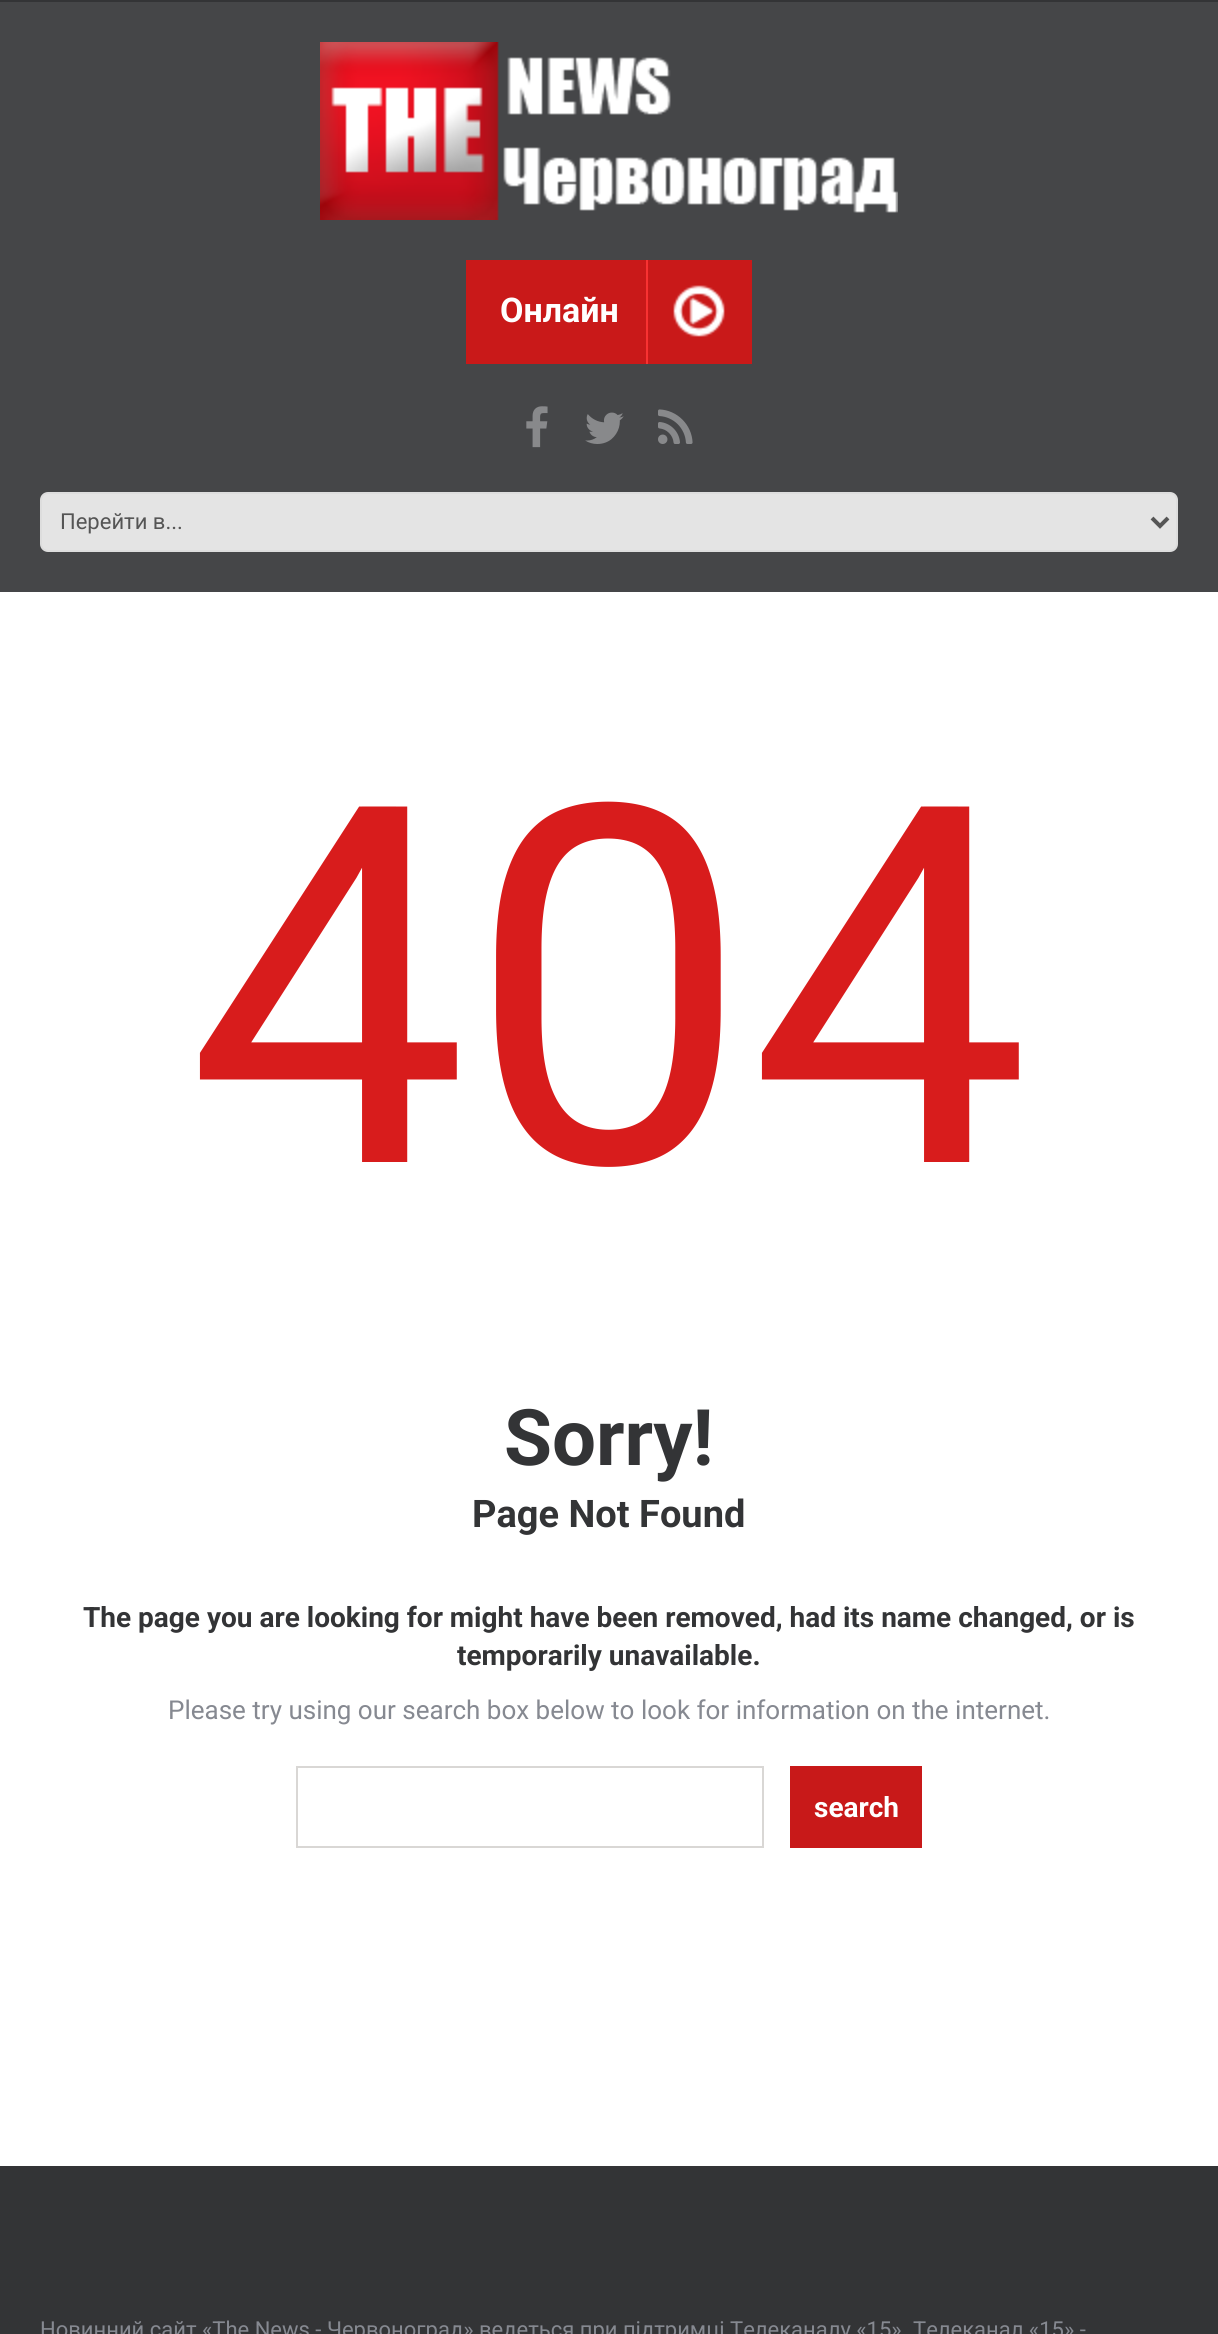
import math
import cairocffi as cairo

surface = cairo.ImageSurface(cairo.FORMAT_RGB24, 1218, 2334)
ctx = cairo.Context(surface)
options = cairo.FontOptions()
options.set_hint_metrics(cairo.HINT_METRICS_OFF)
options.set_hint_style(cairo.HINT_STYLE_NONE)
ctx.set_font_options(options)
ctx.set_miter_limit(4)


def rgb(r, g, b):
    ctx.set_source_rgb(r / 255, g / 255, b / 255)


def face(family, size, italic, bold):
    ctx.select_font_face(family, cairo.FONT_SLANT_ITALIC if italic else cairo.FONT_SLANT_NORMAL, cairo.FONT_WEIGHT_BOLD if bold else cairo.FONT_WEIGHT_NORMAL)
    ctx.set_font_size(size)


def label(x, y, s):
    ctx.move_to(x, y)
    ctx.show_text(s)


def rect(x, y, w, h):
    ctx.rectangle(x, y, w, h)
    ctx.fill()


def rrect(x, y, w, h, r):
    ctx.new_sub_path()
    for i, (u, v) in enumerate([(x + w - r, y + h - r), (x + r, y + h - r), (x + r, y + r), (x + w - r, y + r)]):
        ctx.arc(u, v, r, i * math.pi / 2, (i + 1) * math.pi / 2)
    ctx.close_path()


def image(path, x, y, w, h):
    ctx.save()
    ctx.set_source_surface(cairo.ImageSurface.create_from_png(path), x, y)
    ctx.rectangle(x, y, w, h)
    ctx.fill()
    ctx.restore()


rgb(51, 52, 54)
ctx.paint()
rgb(69, 70, 72)
rect(0, 2, 1218, 590)
image('image0.png', 320, 42, 578, 178)
rgb(201, 25, 25)
rect(466, 260, 286, 104)
face('Roboto', 34, 0, 1)
rgb(255, 255, 255)
label(500, 322, 'Онлайн')
image('image1.png', 673, 285, 52, 52)
rgb(248, 50, 50)
rect(646, 260, 2, 104)
image('image2.png', 526, 406, 22, 42)
image('image3.png', 585, 412, 39, 32)
image('image4.png', 658, 409, 35, 35)
rgb(228, 228, 228)
rrect(41, 493, 1136, 58, 7)
ctx.fill_preserve()
rgb(221, 221, 221)
ctx.stroke()
ctx.new_path()
ctx.move_to(1152, 518)
ctx.line_to(1160, 526)
ctx.line_to(1168, 518)
rgb(85, 85, 85)
ctx.set_line_width(4)
ctx.stroke()
face('Roboto', 22, 0, 0)
label(60, 529, 'Перейти в...')
rgb(255, 255, 255)
rect(0, 592, 1218, 1574)
face('Roboto', 500, 0, 0)
rgb(216, 28, 28)
label(187, 1162, '404')
face('Roboto', 78, 0, 1)
rgb(51, 52, 54)
label(504, 1465, 'Sorry!')
face('Roboto', 38, 0, 1)
label(472, 1527, 'Page Not Found')
face('Roboto', 28, 0, 1)
label(83, 1627, 'The page you are looking for might have been removed, had its name changed, or is')
label(457, 1665, 'temporarily unavailable.')
face('Roboto', 26, 0, 0)
rgb(134, 137, 145)
label(168, 1719, 'Please try using our search box below to look for information on the internet.')
ctx.rectangle(297, 1767, 466, 80)
rgb(217, 215, 213)
ctx.set_line_width(2)
ctx.stroke()
rgb(200, 25, 25)
rect(790, 1766, 132, 82)
face('Roboto', 28, 0, 1)
rgb(255, 255, 255)
label(814, 1817, 'search')
face('Roboto', 22, 0, 0)
rgb(134, 137, 145)
label(40, 2337, 'Новинний сайт «The News - Червоноград» ведеться при підтримці Телеканалу «15»')
label(913, 2337, 'Телеканал «15» -')
surface.write_to_png('render.png')
